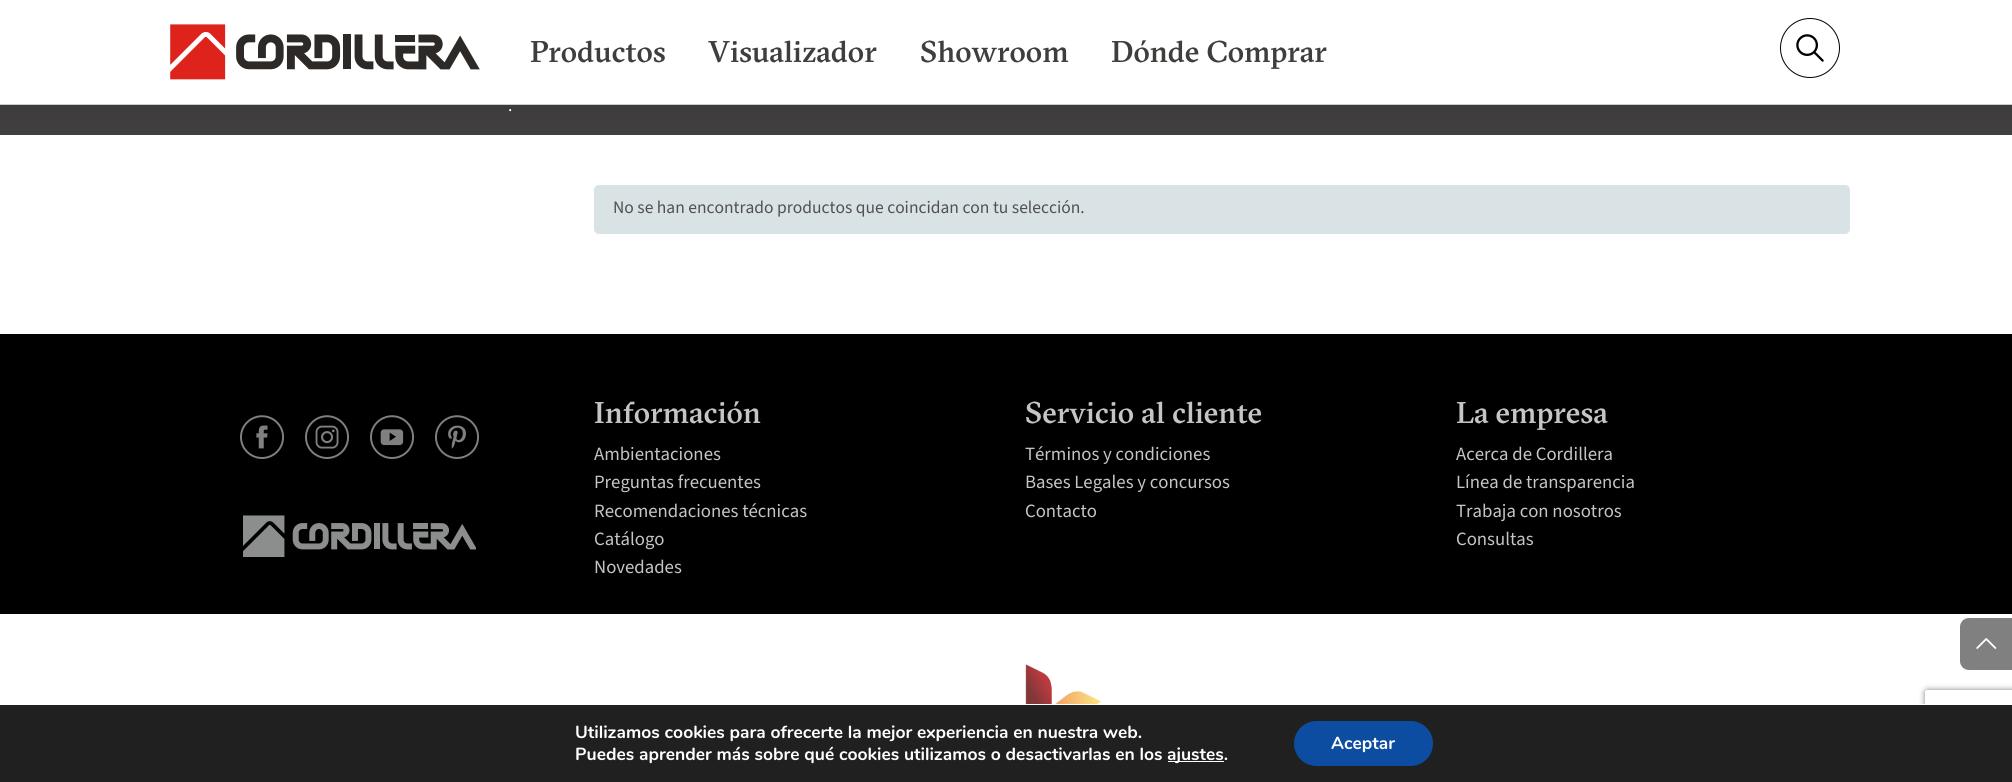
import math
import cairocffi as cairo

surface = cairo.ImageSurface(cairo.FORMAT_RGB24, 2012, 782)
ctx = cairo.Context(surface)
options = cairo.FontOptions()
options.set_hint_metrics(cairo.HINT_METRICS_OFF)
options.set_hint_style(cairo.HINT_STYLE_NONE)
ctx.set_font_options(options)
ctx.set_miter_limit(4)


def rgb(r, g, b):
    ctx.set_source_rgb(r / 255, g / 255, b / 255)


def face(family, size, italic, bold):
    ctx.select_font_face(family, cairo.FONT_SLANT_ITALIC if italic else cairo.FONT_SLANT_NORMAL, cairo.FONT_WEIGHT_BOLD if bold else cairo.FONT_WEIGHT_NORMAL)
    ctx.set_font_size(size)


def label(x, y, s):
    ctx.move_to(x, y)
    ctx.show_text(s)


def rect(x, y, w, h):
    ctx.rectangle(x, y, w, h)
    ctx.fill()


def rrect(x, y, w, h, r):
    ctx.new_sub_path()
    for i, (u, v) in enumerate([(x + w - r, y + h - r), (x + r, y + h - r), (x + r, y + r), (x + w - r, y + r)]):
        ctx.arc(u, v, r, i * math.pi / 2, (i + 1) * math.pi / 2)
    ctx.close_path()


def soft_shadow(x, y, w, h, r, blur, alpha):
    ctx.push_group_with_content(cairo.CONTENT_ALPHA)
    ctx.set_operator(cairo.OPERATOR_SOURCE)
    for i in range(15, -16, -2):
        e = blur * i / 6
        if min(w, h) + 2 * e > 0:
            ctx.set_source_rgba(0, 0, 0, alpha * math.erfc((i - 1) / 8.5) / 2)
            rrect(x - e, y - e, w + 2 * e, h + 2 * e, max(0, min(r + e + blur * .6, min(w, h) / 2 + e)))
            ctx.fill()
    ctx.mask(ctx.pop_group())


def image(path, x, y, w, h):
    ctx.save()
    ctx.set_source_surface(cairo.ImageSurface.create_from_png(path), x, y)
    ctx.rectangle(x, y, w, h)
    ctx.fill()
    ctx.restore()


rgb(255, 255, 255)
ctx.paint()
rgb(64, 62, 62)
rect(0, 105, 2012, 30)
rgb(0, 0, 0)
soft_shadow(0, 4, 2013, 105, 0, 9.5, 0.08)
rgb(255, 255, 255)
rect(0, 0, 2012, 104)
rgb(205, 205, 206)
rect(0, 104, 2012, 1)
image('image0.png', 170, 24, 310, 56)
face('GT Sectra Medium', 30, 0, 0)
rgb(64, 62, 61)
label(530, 62, 'Productos')
label(708, 62, 'Visualizador')
label(920, 62, 'Showroom')
label(1111, 62, 'Dónde Comprar')
ctx.new_path()
ctx.arc(1810, 48, 29.5, 0, 2 * math.pi)
rgb(0, 0, 0)
ctx.set_line_width(1)
ctx.stroke()
image('image1.png', 1796, 34, 28, 28)
face('Source Sans 3', 17.5, 0, 0)
rgb(255, 255, 255)
label(508, 111, '.')
rgb(217, 227, 230)
rrect(594, 185, 1256, 49, 5)
ctx.fill()
rgb(81, 81, 81)
label(613, 213, 'No se han encontrado productos que coincidan con tu selección.')
rgb(0, 0, 0)
rect(0, 334, 2012, 280)
image('image2.png', 240, 415, 44, 44)
image('image3.png', 305, 415, 44, 44)
image('image4.png', 370, 415, 44, 44)
image('image5.png', 435, 415, 44, 44)
image('image6.png', 243, 515, 233, 42)
face('GT Sectra Medium', 30, 0, 0)
rgb(197, 197, 196)
label(594, 423, 'Información')
face('Source Sans 3', 18.75, 0, 0)
label(594, 460, 'Ambientaciones')
label(594, 488, 'Preguntas frecuentes')
label(594, 517, 'Recomendaciones técnicas')
label(594, 545, 'Catálogo')
label(594, 573, 'Novedades')
face('GT Sectra Medium', 30, 0, 0)
label(1025, 423, 'Servicio al cliente')
face('Source Sans 3', 18.75, 0, 0)
label(1025, 460, 'Términos y condiciones')
label(1025, 488, 'Bases Legales y concursos')
label(1025, 517, 'Contacto')
face('GT Sectra Medium', 30, 0, 0)
label(1456, 423, 'La empresa')
face('Source Sans 3', 18.75, 0, 0)
label(1456, 460, 'Acerca de Cordillera')
label(1456, 488, 'Línea de transparencia')
label(1456, 517, 'Trabaja con nosotros')
label(1456, 545, 'Consultas')
image('image7.png', 1025, 664, 77, 40)
rgb(128, 128, 128)
ctx.new_path()
ctx.move_to(1969, 618)
ctx.line_to(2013, 618)
ctx.line_to(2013, 670)
ctx.line_to(1969, 670)
ctx.curve_to(1964, 670, 1960, 666, 1960, 661)
ctx.line_to(1960, 627)
ctx.curve_to(1960, 622, 1964, 618, 1969, 618)
ctx.close_path()
ctx.fill()
image('image8.png', 1976, 638, 21, 11)
ctx.save()
ctx.set_fill_rule(cairo.FILL_RULE_EVEN_ODD)
ctx.new_path()
ctx.move_to(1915, 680)
ctx.line_to(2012, 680)
ctx.line_to(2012, 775)
ctx.line_to(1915, 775)
ctx.close_path()
ctx.move_to(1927.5, 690)
ctx.line_to(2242.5, 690)
ctx.curve_to(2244, 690, 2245, 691, 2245, 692.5)
ctx.line_to(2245, 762.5)
ctx.curve_to(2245, 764, 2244, 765, 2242.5, 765)
ctx.line_to(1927.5, 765)
ctx.curve_to(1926, 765, 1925, 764, 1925, 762.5)
ctx.line_to(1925, 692.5)
ctx.curve_to(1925, 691, 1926, 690, 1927.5, 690)
ctx.close_path()
ctx.clip()
rgb(128, 128, 128)
soft_shadow(1925, 690, 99, 75, 2.5, 3, 1)
ctx.restore()
rgb(32, 32, 32)
rect(0, 705, 2012, 77)
rgb(255, 255, 255)
rect(1919, 704, 6, 1)
face('Nunito', 17.5, 0, 1)
label(575, 738, 'Utilizamos cookies para ofrecerte la mejor experiencia en nuestra web.')
label(575, 760, 'Puedes aprender más sobre qué cookies utilizamos o desactivarlas en los')
rect(1168, 761, 56, 1)
label(1167, 760, 'ajustes.')
rgb(12, 77, 162)
rrect(1294, 721, 139, 45, 22.5)
ctx.fill()
rgb(255, 255, 255)
label(1331, 749, 'Aceptar')
surface.write_to_png('render.png')
